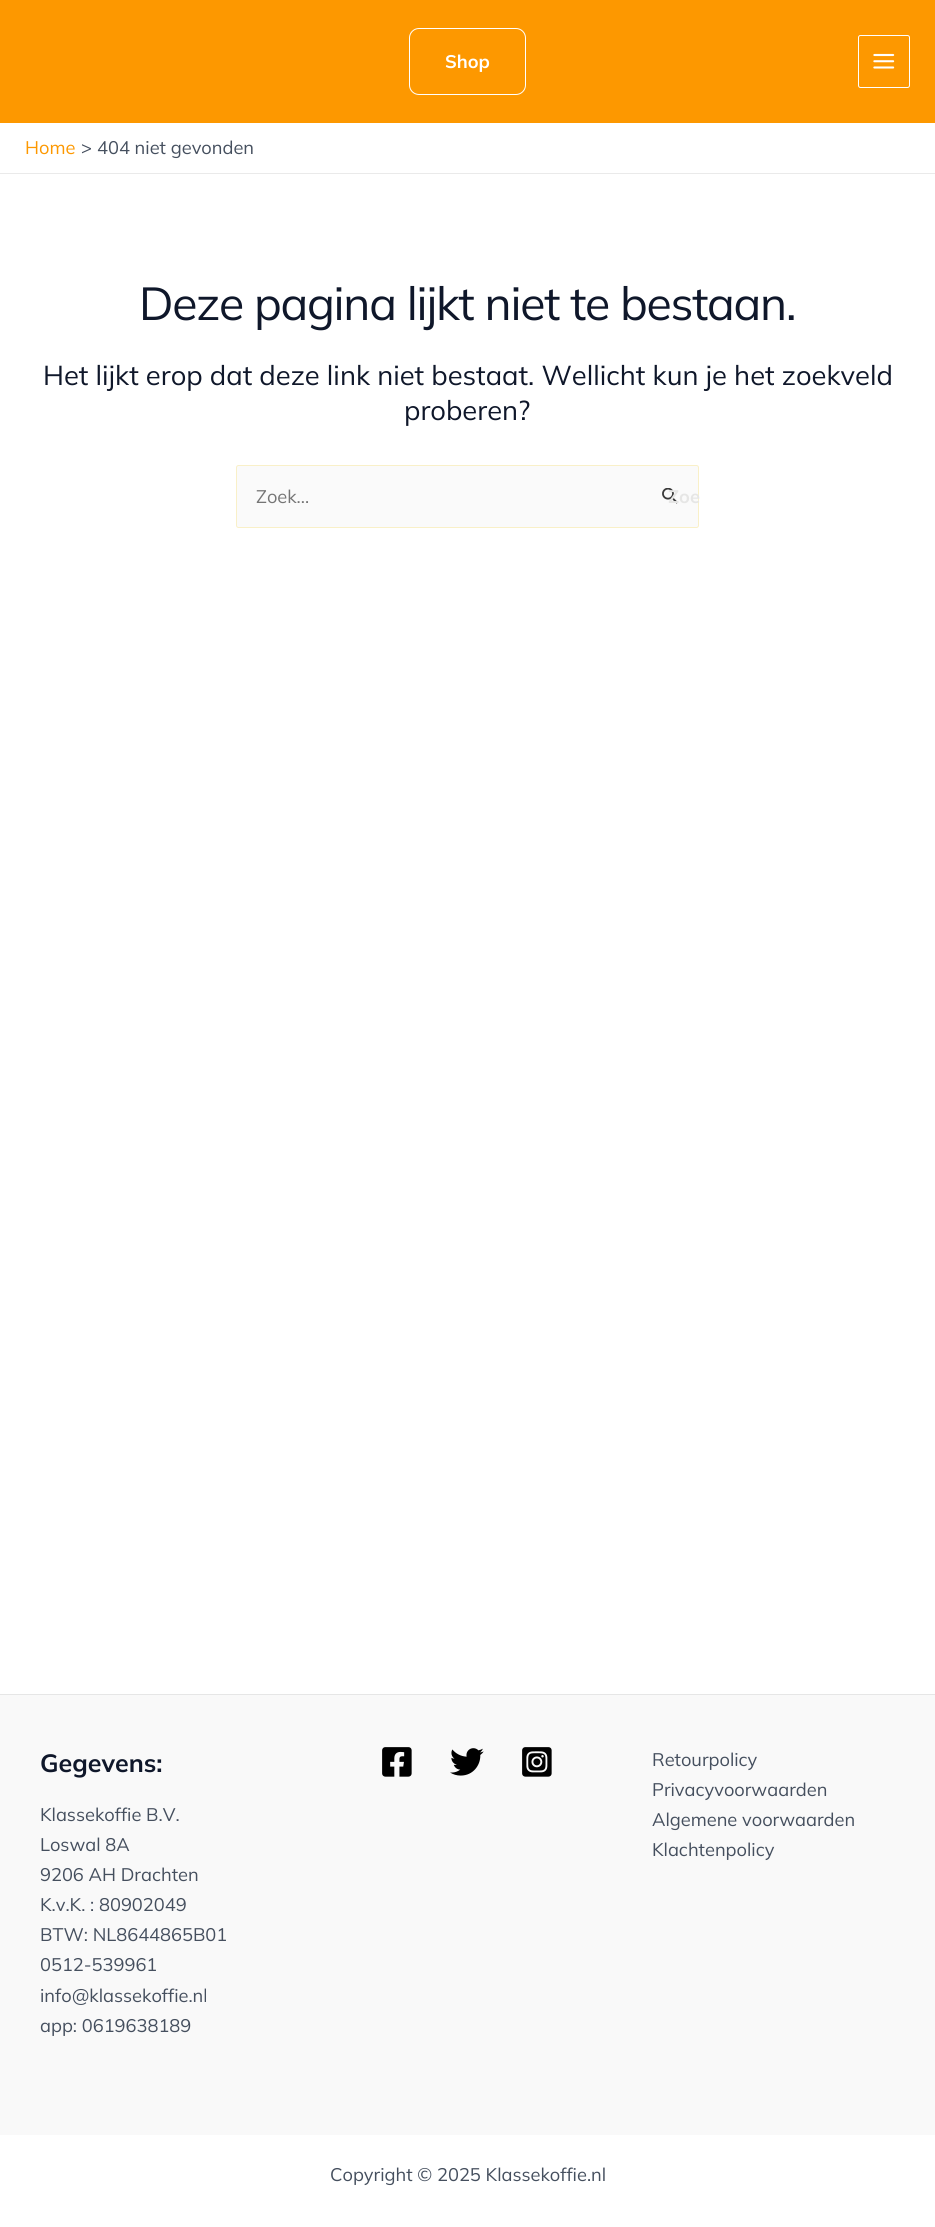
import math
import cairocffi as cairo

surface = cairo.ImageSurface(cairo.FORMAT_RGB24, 935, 2227)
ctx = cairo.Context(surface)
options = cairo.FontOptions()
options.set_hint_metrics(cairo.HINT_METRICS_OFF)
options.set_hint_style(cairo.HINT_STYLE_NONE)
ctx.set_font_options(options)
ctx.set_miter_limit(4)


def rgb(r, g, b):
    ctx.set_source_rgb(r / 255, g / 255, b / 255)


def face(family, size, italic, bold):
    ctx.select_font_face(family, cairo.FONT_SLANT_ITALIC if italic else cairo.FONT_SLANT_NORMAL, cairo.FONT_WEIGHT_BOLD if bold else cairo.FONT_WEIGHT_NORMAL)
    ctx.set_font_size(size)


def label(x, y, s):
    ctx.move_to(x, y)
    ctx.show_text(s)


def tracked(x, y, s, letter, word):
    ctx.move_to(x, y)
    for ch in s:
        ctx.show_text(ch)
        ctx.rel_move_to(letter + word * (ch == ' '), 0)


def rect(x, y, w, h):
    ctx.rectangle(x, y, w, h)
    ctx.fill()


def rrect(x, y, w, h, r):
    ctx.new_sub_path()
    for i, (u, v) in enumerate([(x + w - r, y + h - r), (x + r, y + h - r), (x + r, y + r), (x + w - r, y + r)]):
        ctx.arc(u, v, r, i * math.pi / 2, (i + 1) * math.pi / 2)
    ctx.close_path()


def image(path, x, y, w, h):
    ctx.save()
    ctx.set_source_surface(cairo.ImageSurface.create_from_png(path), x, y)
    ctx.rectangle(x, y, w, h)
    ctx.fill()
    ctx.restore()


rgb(255, 255, 255)
ctx.paint()
rgb(253, 152, 0)
rect(0, 0, 935, 123)
rrect(409.5, 28.5, 116, 66, 9.5)
rgb(255, 255, 255)
ctx.set_line_width(1)
ctx.stroke()
face('Mulish', 18.25, 0, 1)
label(445, 68, 'Shop')
rrect(858.5, 35.5, 51, 52, 2)
ctx.stroke()
image('image0.png', 873, 53, 22, 16)
rgb(234, 234, 234)
rect(0, 173, 935, 1)
face('Mulish', 18.25, 0, 0)
rgb(253, 152, 0)
label(25, 154, 'Home')
rgb(69, 79, 94)
label(81, 154, '>')
label(97, 154, '404 niet gevonden')
face('Mulish', 46.25, 0, 0)
rgb(15, 23, 42)
tracked(139, 320, 'Deze pagina lijkt niet te bestaan.', -1.25, 0.25)
face('Mulish', 27.35, 0, 0)
label(43, 385, 'Het lijkt erop dat deze link niet bestaat. Wellicht kun je het zoekveld')
label(404, 420, 'proberen?')
rgb(250, 250, 250)
rrect(236.5, 465.5, 462, 62, 2)
ctx.fill_preserve()
rgb(249, 240, 200)
ctx.stroke()
face('Mulish', 18.25, 0, 0)
rgb(117, 117, 117)
label(256, 503, 'Zoek...')
image('image1.png', 662, 488, 16, 16)
face('Mulish', 18.25, 0, 1)
rgb(230, 230, 229)
label(668, 503, 'Zoe')
rgb(249, 249, 249)
rect(0, 1695, 935, 440)
rgb(230, 230, 230)
rect(0, 1694, 935, 1)
face('Mulish', 25, 0, 1)
rgb(15, 23, 42)
label(40, 1772, 'Gegevens:')
face('Mulish', 18.25, 0, 0)
rgb(69, 79, 94)
label(40, 1821, 'Klassekoffie B.V.')
label(40, 1851, 'Loswal 8A')
label(40, 1881, '9206 AH Drachten')
label(40, 1911, 'K.v.K. : 80902049')
label(40, 1941, 'BTW: NL8644865B01')
label(40, 1971, '0512-539961')
label(40, 2002, 'info@klassekoffie.nl')
label(40, 2032, 'app: 0619638189')
image('image2.png', 382, 1747, 30, 30)
image('image3.png', 450, 1748, 34, 28)
image('image4.png', 522, 1747, 30, 30)
label(652, 1766, 'Retourpolicy')
label(652, 1796, 'Privacyvoorwaarden')
label(652, 1826, 'Algemene voorwaarden')
label(652, 1856, 'Klachtenpolicy')
label(330, 2181, 'Copyright © 2025 Klassekoffie.nl')
surface.write_to_png('render.png')
